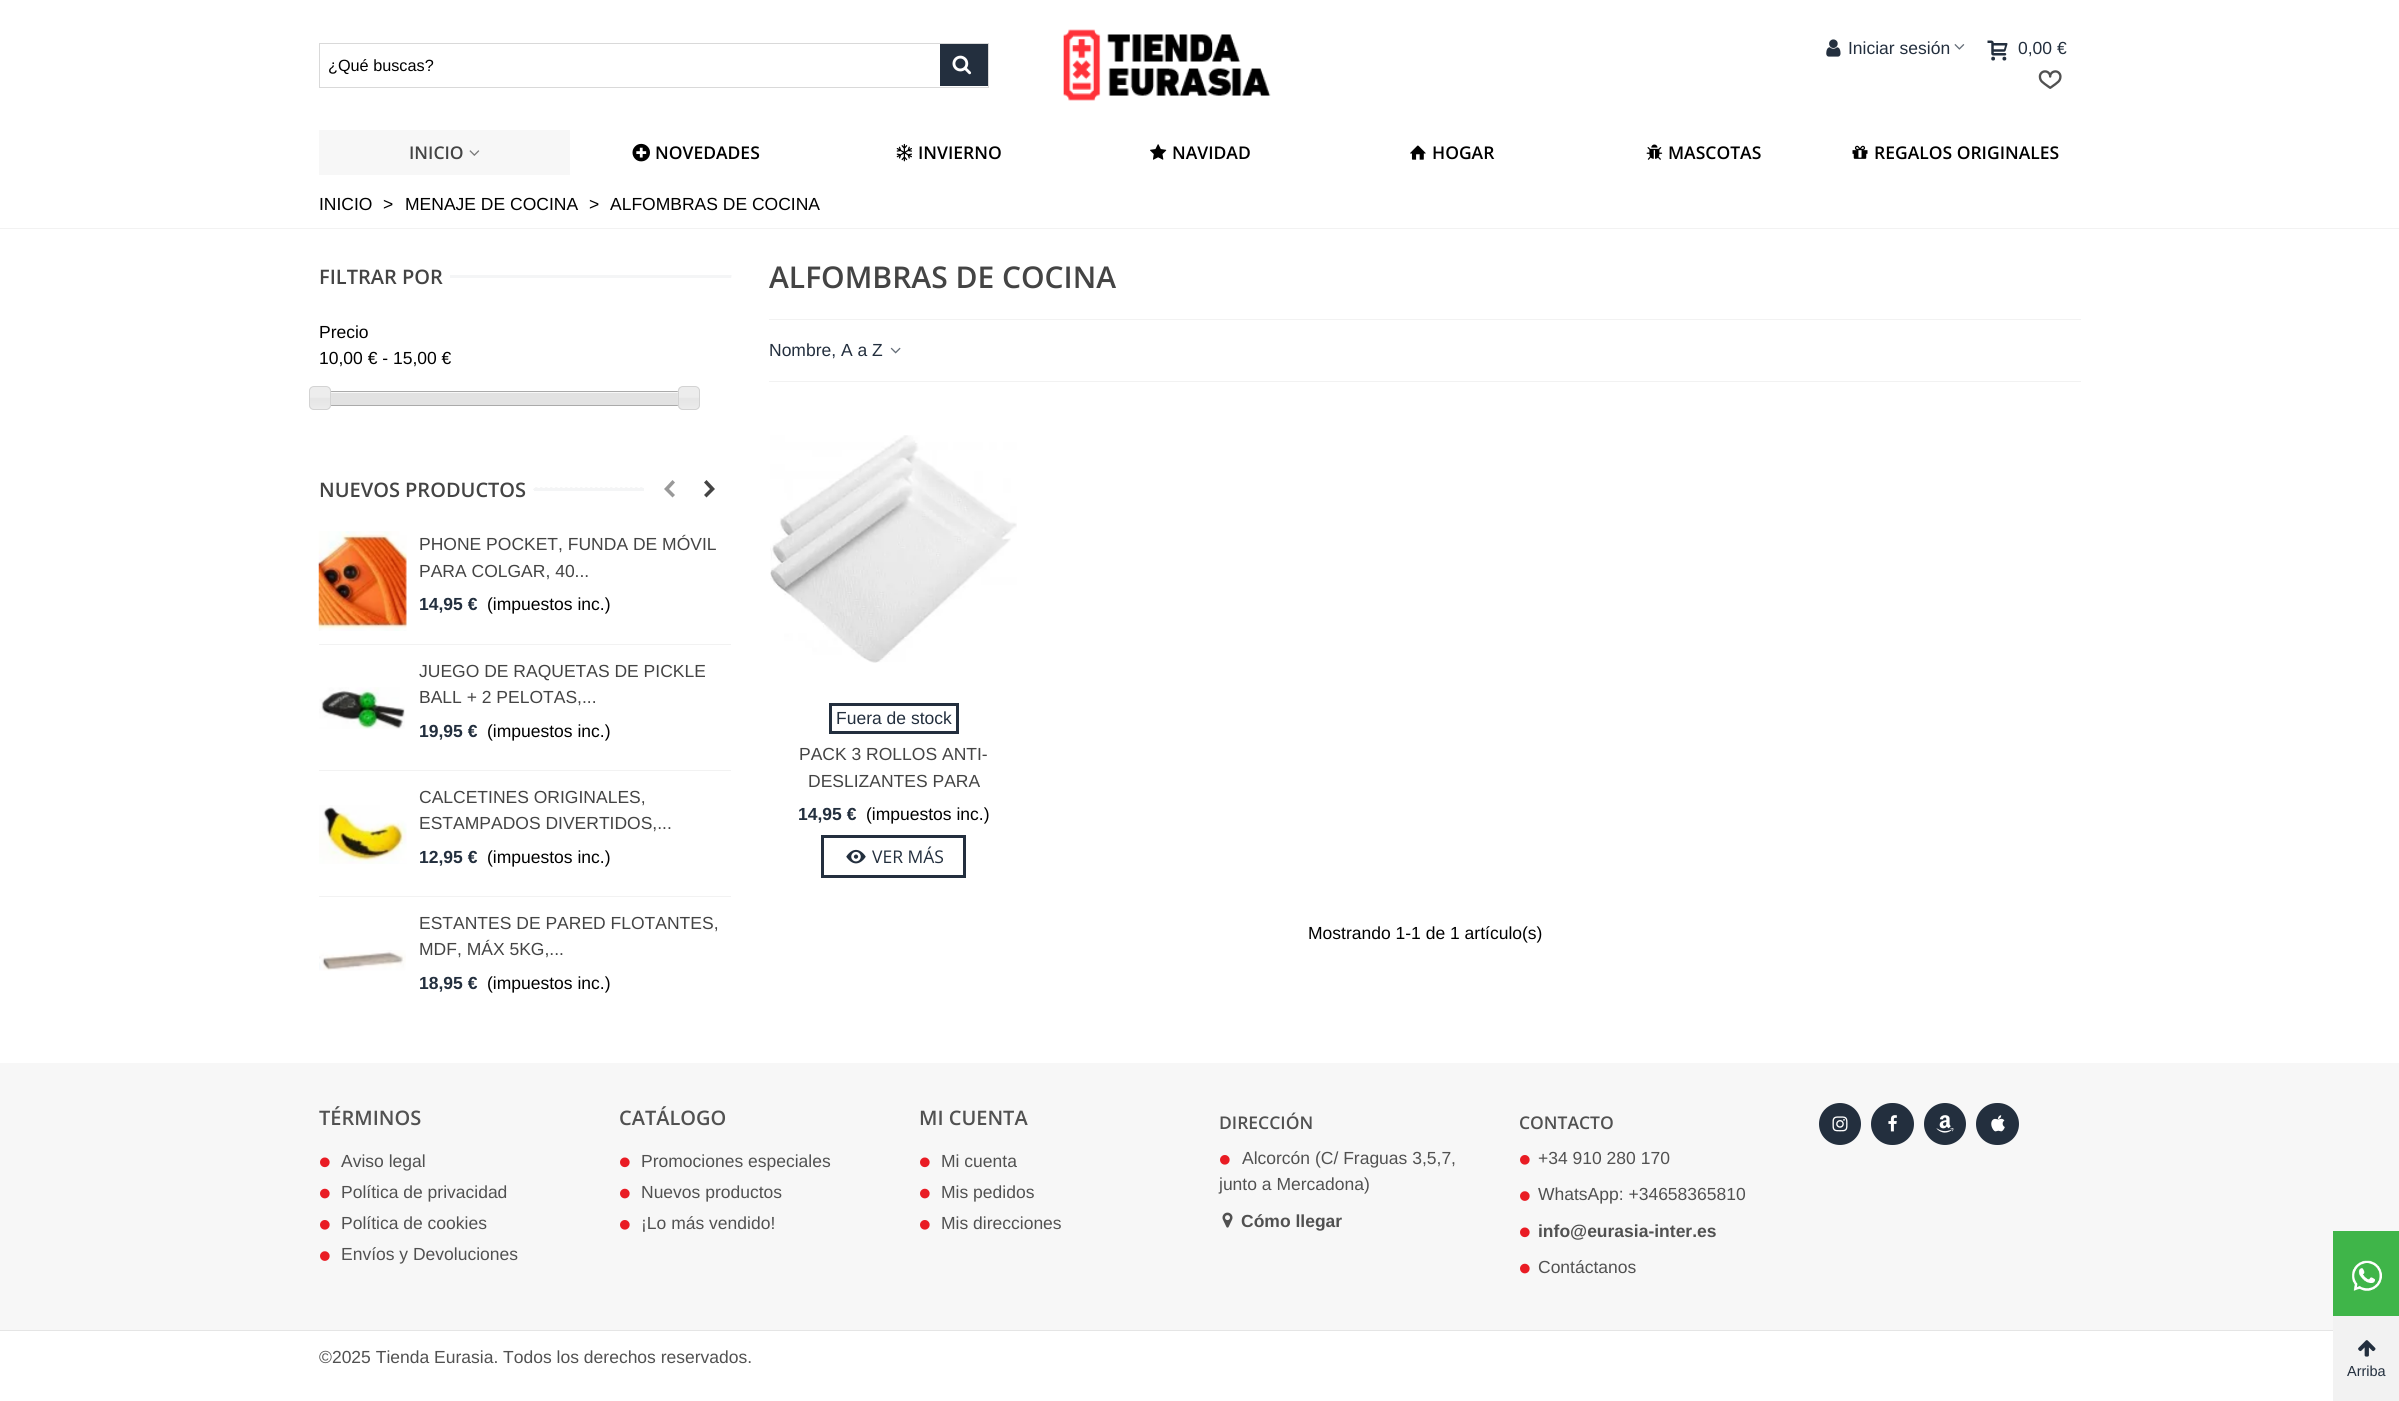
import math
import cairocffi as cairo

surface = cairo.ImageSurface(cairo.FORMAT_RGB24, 2399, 1401)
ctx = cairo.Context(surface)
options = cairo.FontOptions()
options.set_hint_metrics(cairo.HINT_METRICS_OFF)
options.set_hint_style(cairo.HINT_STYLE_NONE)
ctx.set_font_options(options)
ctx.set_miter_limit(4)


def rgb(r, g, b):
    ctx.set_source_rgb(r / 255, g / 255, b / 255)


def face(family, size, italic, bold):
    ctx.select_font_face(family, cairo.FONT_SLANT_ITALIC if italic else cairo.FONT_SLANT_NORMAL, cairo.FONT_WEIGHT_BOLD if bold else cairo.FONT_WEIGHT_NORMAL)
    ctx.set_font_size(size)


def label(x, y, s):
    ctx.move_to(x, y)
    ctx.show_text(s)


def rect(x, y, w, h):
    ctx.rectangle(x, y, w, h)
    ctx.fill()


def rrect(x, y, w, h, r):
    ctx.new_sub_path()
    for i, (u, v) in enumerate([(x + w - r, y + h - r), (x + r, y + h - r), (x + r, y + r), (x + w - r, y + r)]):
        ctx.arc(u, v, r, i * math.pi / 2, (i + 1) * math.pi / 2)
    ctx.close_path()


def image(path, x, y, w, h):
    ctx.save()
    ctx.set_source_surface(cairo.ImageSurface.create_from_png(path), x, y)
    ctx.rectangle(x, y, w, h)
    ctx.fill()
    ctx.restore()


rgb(255, 255, 255)
ctx.paint()
image('image0.png', 1063, 29, 208, 72)
image('image1.png', 1826, 39, 15, 18)
face('Liberation Sans', 17.5, 0, 0)
rgb(35, 47, 62)
label(1848, 54, 'Iniciar sesión')
image('image2.png', 1954, 44, 11, 6)
image('image3.png', 1987, 40, 21, 21)
label(2018, 54, '0,00 €')
image('image4.png', 2038, 70, 24, 19)
ctx.rectangle(319.5, 43.5, 669, 44)
rgb(217, 217, 217)
ctx.set_line_width(1)
ctx.stroke()
face('Liberation Sans', 16.25, 0, 0)
rgb(0, 0, 0)
label(328, 71, '¿Qué buscas?')
rgb(35, 47, 62)
rect(940, 44, 48, 42)
image('image5.png', 952, 55, 20, 20)
rgb(247, 247, 247)
rect(319, 130, 251, 45)
face('Open Sans SemiBold', 17.5, 0, 0)
rgb(68, 68, 68)
label(409, 159, 'INICIO')
image('image6.png', 469, 150, 11, 6)
image('image7.png', 632, 143, 18, 19)
rgb(0, 0, 0)
label(655, 159, 'NOVEDADES')
image('image8.png', 896, 143, 16, 19)
label(918, 159, 'INVIERNO')
image('image9.png', 1150, 144, 17, 16)
label(1172, 159, 'NAVIDAD')
image('image10.png', 1410, 145, 16, 15)
label(1432, 159, 'HOGAR')
image('image11.png', 1646, 144, 17, 16)
label(1668, 159, 'MASCOTAS')
image('image12.png', 1852, 145, 16, 14)
label(1874, 159, 'REGALOS ORIGINALES')
rgb(242, 242, 242)
rect(0, 228, 2399, 1)
face('Liberation Sans', 17.5, 0, 0)
rgb(0, 0, 0)
label(319, 210, 'INICIO')
label(383, 210, '>')
label(405, 210, 'MENAJE DE COCINA')
label(589, 210, '>')
label(610, 210, 'ALFOMBRAS DE COCINA')
face('Open Sans SemiBold', 20, 0, 0)
rgb(68, 68, 68)
label(319, 284, 'FILTRAR POR')
image('image13.png', 731, 275, 1, 3)
rgb(244, 245, 246)
rect(450, 275, 281, 3)
face('Liberation Sans', 17.5, 0, 0)
rgb(0, 0, 0)
label(319, 338, 'Precio')
label(319, 364, '10,00 € - 15,00 €')
ctx.rectangle(319.5, 391.5, 370, 14)
rgb(170, 170, 170)
ctx.stroke()
image('image15.png', 331, 392, 347, 13)
image('image14.png', 309, 387, 23, 23)
rrect(309.5, 386.5, 21, 23, 4.5)
rgb(211, 211, 211)
ctx.stroke()
image('image16.png', 677, 387, 23, 23)
rrect(678.5, 386.5, 21, 23, 4.5)
ctx.stroke()
face('Open Sans SemiBold', 20, 0, 0)
rgb(68, 68, 68)
label(319, 497, 'NUEVOS PRODUCTOS')
image('image17.png', 533, 487, 110, 3)
rgb(244, 245, 246)
rect(534, 488, 110, 3)
rgb(153, 153, 153)
ctx.new_path()
ctx.move_to(664, 489)
ctx.line_to(672.5, 480)
ctx.line_to(675, 482.5)
ctx.line_to(669, 489)
ctx.line_to(675, 495)
ctx.line_to(672.5, 497.5)
ctx.close_path()
ctx.fill()
rgb(68, 68, 68)
ctx.new_path()
ctx.move_to(704, 495)
ctx.line_to(710, 489)
ctx.line_to(704, 482.5)
ctx.line_to(706.5, 480)
ctx.line_to(715, 489)
ctx.line_to(706.5, 497.5)
ctx.close_path()
ctx.fill()
rgb(242, 242, 242)
rect(319, 644, 412, 1)
image('image18.png', 318, 531, 89, 100)
face('Liberation Sans', 17.5, 0, 0)
rgb(68, 68, 68)
label(419, 550, 'PHONE POCKET, FUNDA DE MÓVIL')
label(419, 577, 'PARA COLGAR, 40...')
face('Liberation Sans', 17.5, 0, 1)
rgb(35, 47, 62)
label(419, 610, '14,95 €')
face('Liberation Sans', 17.5, 0, 0)
rgb(0, 0, 0)
label(487, 610, '(impuestos inc.)')
rgb(242, 242, 242)
rect(319, 770, 412, 1)
image('image19.png', 319, 687, 86, 42)
rgb(68, 68, 68)
label(419, 677, 'JUEGO DE RAQUETAS DE PICKLE')
label(419, 703, 'BALL + 2 PELOTAS,...')
face('Liberation Sans', 17.5, 0, 1)
rgb(35, 47, 62)
label(419, 737, '19,95 €')
face('Liberation Sans', 17.5, 0, 0)
rgb(0, 0, 0)
label(487, 737, '(impuestos inc.)')
rgb(242, 242, 242)
rect(319, 896, 412, 1)
image('image20.png', 319, 805, 88, 59)
rgb(68, 68, 68)
label(419, 803, 'CALCETINES ORIGINALES,')
label(419, 829, 'ESTAMPADOS DIVERTIDOS,...')
face('Liberation Sans', 17.5, 0, 1)
rgb(35, 47, 62)
label(419, 863, '12,95 €')
face('Liberation Sans', 17.5, 0, 0)
rgb(0, 0, 0)
label(487, 863, '(impuestos inc.)')
image('image21.png', 319, 950, 87, 21)
rgb(68, 68, 68)
label(419, 929, 'ESTANTES DE PARED FLOTANTES,')
label(419, 955, 'MDF, MÁX 5KG,...')
face('Liberation Sans', 17.5, 0, 1)
rgb(35, 47, 62)
label(419, 989, '18,95 €')
face('Liberation Sans', 17.5, 0, 0)
rgb(0, 0, 0)
label(487, 989, '(impuestos inc.)')
face('Open Sans SemiBold', 30, 0, 0)
rgb(68, 68, 68)
label(769, 288, 'ALFOMBRAS DE COCINA')
rgb(242, 242, 242)
rect(769, 319, 1312, 1)
rect(769, 381, 1312, 1)
face('Liberation Sans', 17.5, 0, 0)
rgb(35, 47, 62)
label(769, 356, 'Nombre, A a Z')
image('image22.png', 890, 347, 11, 7)
image('image23.png', 770, 435, 247, 228)
ctx.rectangle(830.5, 704.5, 127, 28)
ctx.set_line_width(3)
ctx.stroke()
label(836, 724, 'Fuera de stock')
rgb(68, 68, 68)
label(799, 760, 'PACK 3 ROLLOS ANTI-')
label(808, 787, 'DESLIZANTES PARA')
face('Liberation Sans', 17.5, 0, 1)
rgb(35, 47, 62)
label(798, 820, '14,95 €')
face('Liberation Sans', 17.5, 0, 0)
rgb(0, 0, 0)
label(866, 820, '(impuestos inc.)')
ctx.rectangle(822.5, 836.5, 142, 40)
rgb(35, 47, 62)
ctx.stroke()
image('image24.png', 846, 849, 20, 15)
face('Open Sans', 17.5, 0, 0)
label(872, 863, 'VER MÁS')
face('Liberation Sans', 17.5, 0, 0)
rgb(0, 0, 0)
label(1308, 939, 'Mostrando 1-1 de 1 artículo(s)')
rgb(247, 247, 247)
rect(0, 1063, 2399, 267)
face('Open Sans SemiBold', 20, 0, 0)
rgb(81, 81, 81)
label(319, 1125, 'TÉRMINOS')
image('image25.png', 320, 1157, 10, 11)
face('Liberation Sans', 17.5, 0, 0)
label(341, 1167, 'Aviso legal')
image('image26.png', 320, 1188, 10, 11)
label(341, 1198, 'Política de privacidad')
image('image27.png', 320, 1220, 10, 10)
label(341, 1229, 'Política de cookies')
image('image28.png', 320, 1251, 10, 10)
label(341, 1260, 'Envíos y Devoluciones')
face('Open Sans SemiBold', 20, 0, 0)
label(619, 1125, 'CATÁLOGO')
image('image25.png', 620, 1157, 10, 11)
face('Liberation Sans', 17.5, 0, 0)
label(641, 1167, 'Promociones especiales')
image('image26.png', 620, 1188, 10, 11)
label(641, 1198, 'Nuevos productos')
image('image27.png', 620, 1220, 10, 10)
label(641, 1229, '¡Lo más vendido!')
face('Open Sans SemiBold', 20, 0, 0)
label(919, 1125, 'MI CUENTA')
image('image25.png', 920, 1157, 10, 11)
face('Liberation Sans', 17.5, 0, 0)
label(941, 1167, 'Mi cuenta')
image('image26.png', 920, 1188, 10, 11)
label(941, 1198, 'Mis pedidos')
image('image27.png', 920, 1220, 10, 10)
label(941, 1229, 'Mis direcciones')
face('Open Sans SemiBold', 17.5, 0, 0)
label(1219, 1129, 'DIRECCIÓN')
image('image27.png', 1220, 1155, 10, 10)
face('Liberation Sans', 17.5, 0, 0)
label(1242, 1164, 'Alcorcón (C/ Fraguas 3,5,7,')
label(1219, 1190, 'junto a Mercadona)')
image('image29.png', 1222, 1212, 11, 16)
face('Liberation Sans', 17.5, 0, 1)
label(1241, 1227, 'Cómo llegar')
face('Open Sans SemiBold', 17.5, 0, 0)
label(1519, 1129, 'CONTACTO')
image('image27.png', 1520, 1155, 10, 10)
face('Liberation Sans', 17.5, 0, 0)
label(1538, 1164, '+34 910 280 170')
image('image28.png', 1520, 1191, 10, 10)
label(1538, 1200, 'WhatsApp: +34658365810')
image('image25.png', 1520, 1227, 10, 11)
face('Liberation Sans', 17.5, 0, 1)
label(1538, 1237, 'info@eurasia-inter.es')
image('image26.png', 1520, 1263, 10, 11)
face('Liberation Sans', 17.5, 0, 0)
label(1538, 1273, 'Contáctanos')
rgb(35, 47, 62)
ctx.new_path()
ctx.arc(1840, 1124, 21, 0, 2 * math.pi)
ctx.fill()
image('image30.png', 1832, 1116, 16, 16)
rrect(1871, 1103, 43, 42, 21)
ctx.fill()
image('image31.png', 1888, 1115, 9, 17)
ctx.arc(1945, 1124, 21, 0, 2 * math.pi)
ctx.fill()
image('image32.png', 1936, 1115, 18, 18)
rrect(1976, 1103, 43, 42, 21)
ctx.fill()
image('image33.png', 1991, 1115, 14, 17)
rgb(229, 229, 229)
rect(0, 1330, 2333, 1)
rgb(81, 81, 81)
label(319, 1363, '©2025 Tienda Eurasia. Todos los derechos reservados.')
rgb(63, 181, 73)
rect(2333, 1231, 66, 85)
image('image34.png', 2352, 1260, 30, 31)
rgb(242, 242, 242)
rect(2333, 1316, 66, 85)
image('image35.png', 2358, 1340, 18, 17)
face('Liberation Sans', 14.5, 0, 0)
rgb(35, 47, 62)
label(2347, 1376, 'Arriba')
surface.write_to_png('render.png')
